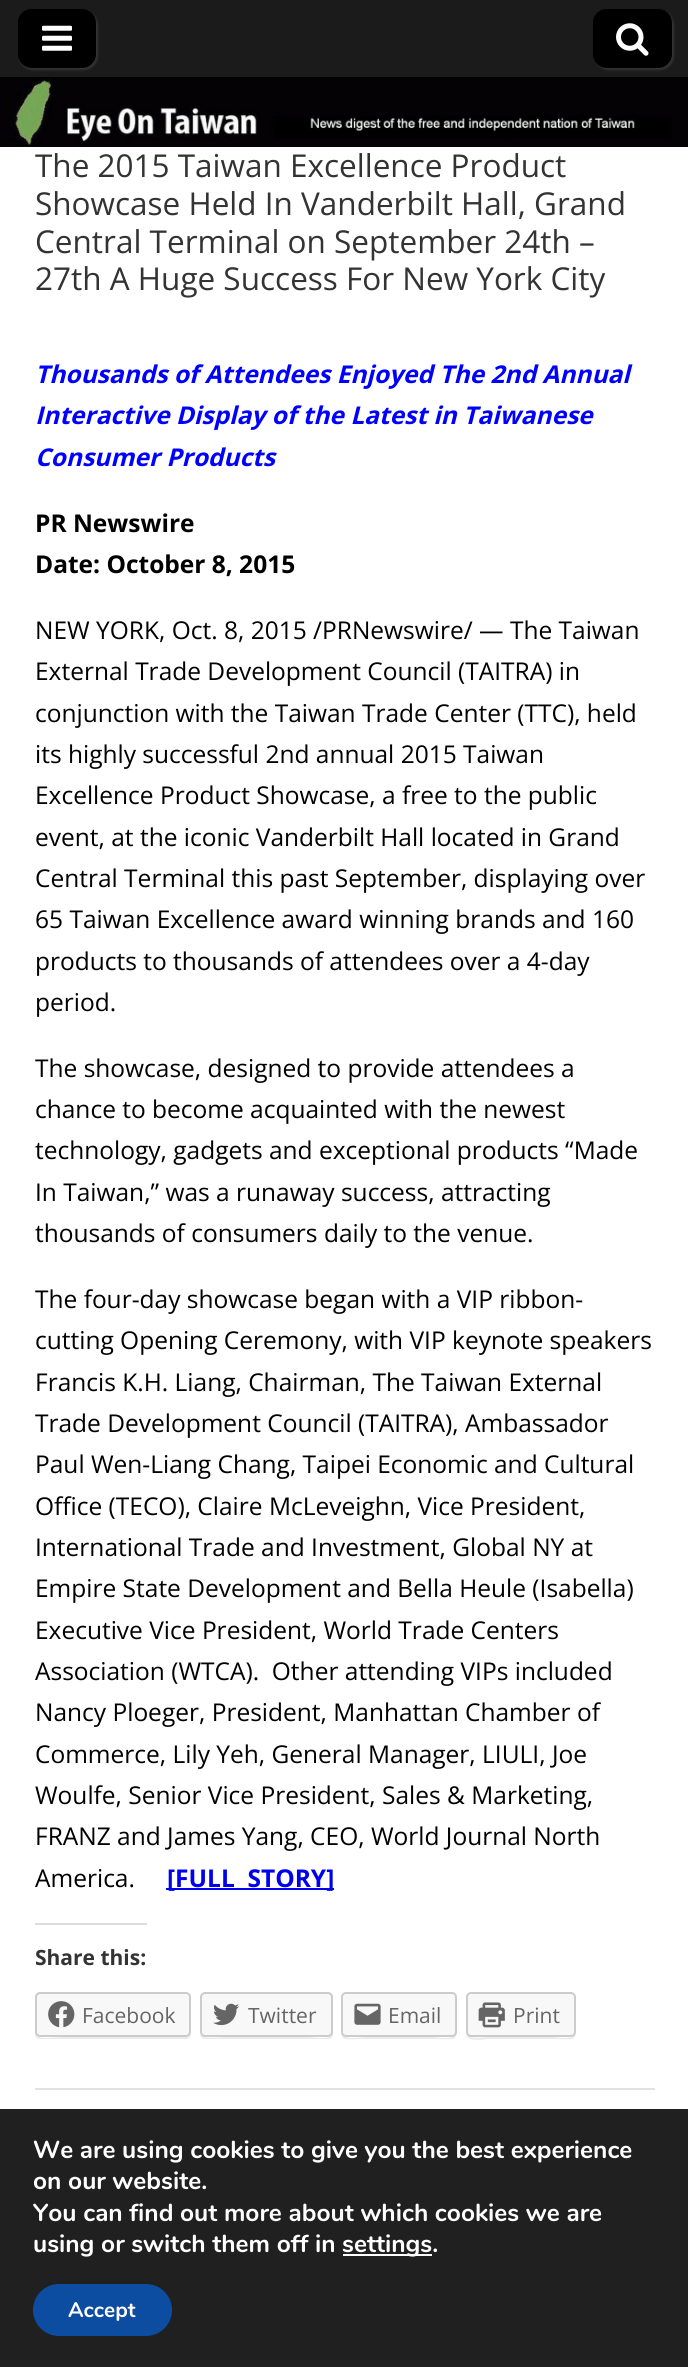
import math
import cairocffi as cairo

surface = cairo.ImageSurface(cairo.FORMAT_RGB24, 688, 2367)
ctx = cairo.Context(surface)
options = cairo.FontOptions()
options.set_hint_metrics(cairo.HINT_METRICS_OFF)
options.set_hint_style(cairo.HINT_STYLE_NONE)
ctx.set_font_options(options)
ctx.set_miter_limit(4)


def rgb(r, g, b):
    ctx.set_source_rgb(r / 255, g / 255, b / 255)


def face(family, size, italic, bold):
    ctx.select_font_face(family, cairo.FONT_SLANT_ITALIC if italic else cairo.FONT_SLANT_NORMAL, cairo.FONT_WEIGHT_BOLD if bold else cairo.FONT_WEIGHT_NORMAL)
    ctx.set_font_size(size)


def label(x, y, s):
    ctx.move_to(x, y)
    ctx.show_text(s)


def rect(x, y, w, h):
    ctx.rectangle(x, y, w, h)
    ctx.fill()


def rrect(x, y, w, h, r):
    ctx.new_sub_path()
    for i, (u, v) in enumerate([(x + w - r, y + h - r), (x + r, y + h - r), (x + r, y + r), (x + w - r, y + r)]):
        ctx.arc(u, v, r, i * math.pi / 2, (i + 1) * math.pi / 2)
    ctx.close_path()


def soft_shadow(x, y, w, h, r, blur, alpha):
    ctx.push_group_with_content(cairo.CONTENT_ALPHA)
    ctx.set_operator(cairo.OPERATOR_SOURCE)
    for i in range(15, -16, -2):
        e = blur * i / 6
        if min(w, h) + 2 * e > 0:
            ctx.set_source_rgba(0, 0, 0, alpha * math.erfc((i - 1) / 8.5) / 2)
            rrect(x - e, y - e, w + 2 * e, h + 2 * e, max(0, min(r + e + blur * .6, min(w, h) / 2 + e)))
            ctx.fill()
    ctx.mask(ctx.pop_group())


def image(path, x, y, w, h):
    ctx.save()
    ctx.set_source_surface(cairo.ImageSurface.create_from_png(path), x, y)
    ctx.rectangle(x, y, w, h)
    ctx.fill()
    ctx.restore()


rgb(255, 255, 255)
ctx.paint()
rgb(27, 27, 27)
rect(0, 0, 688, 77)
rgb(0, 0, 0)
rect(0, 77, 688, 2)
rgb(51, 51, 51)
soft_shadow(19, 11, 79, 59, 14, 1, 1)
rgb(0, 0, 0)
rrect(18, 9, 78, 59, 14)
ctx.fill()
ctx.new_path()
ctx.move_to(33, 10)
ctx.line_to(84, 10)
ctx.curve_to(86, 10, 88, 10, 89, 11)
ctx.curve_to(87, 10, 85, 9, 82, 9)
ctx.line_to(32, 9)
ctx.curve_to(24, 9, 18, 15, 18, 23)
ctx.line_to(18, 54)
ctx.curve_to(18, 57, 19, 59, 20, 61)
ctx.curve_to(19, 60, 19, 58, 19, 56)
ctx.line_to(19, 24)
ctx.curve_to(19, 17, 26, 10, 33, 10)
ctx.close_path()
ctx.fill()
image('image0.png', 42, 25, 30, 26)
rgb(51, 51, 51)
soft_shadow(595, 11, 79, 59, 14, 1, 1)
rgb(0, 0, 0)
rrect(593, 9, 79, 59, 14)
ctx.fill()
ctx.new_path()
ctx.move_to(609, 10)
ctx.line_to(660, 10)
ctx.curve_to(662, 10, 665, 11, 667, 12)
ctx.curve_to(664, 10, 661, 9, 658, 9)
ctx.line_to(607, 9)
ctx.curve_to(599, 9, 593, 15, 593, 23)
ctx.line_to(593, 54)
ctx.curve_to(593, 58, 595, 62, 598, 64)
ctx.curve_to(596, 62, 595, 59, 595, 56)
ctx.line_to(595, 24)
ctx.curve_to(595, 17, 601, 10, 609, 10)
ctx.close_path()
ctx.fill()
image('image1.png', 616, 23, 33, 33)
image('image2.png', 0, 78, 688, 69)
rgb(226, 226, 226)
rect(35, 2088, 620, 2)
face('Open Sans', 31.5, 0, 0)
rgb(51, 51, 51)
label(35, 177, 'The 2015 Taiwan Excellence Product')
label(35, 215, 'Showcase Held In Vanderbilt Hall, Grand')
label(35, 253, 'Central Terminal on September 24th –')
label(35, 290, '27th A Huge Success For New York City')
face('Open Sans', 24.5, 1, 1)
rgb(0, 0, 255)
label(35, 383, 'Thousands of Attendees Enjoyed The 2nd Annual')
label(35, 424, 'Interactive Display of the Latest in Taiwanese')
label(35, 466, 'Consumer Products')
face('Open Sans', 24.5, 0, 1)
rgb(0, 0, 0)
label(35, 532, 'PR Newswire')
label(35, 573, 'Date: October 8, 2015')
face('Open Sans', 24.5, 0, 0)
label(35, 639, 'NEW YORK, Oct. 8, 2015 /PRNewswire/ — The Taiwan')
label(35, 680, 'External Trade Development Council (TAITRA) in')
label(35, 722, 'conjunction with the Taiwan Trade Center (TTC), held')
label(35, 763, 'its highly successful 2nd annual 2015 Taiwan')
label(35, 804, 'Excellence Product Showcase, a free to the public')
label(35, 846, 'event, at the iconic Vanderbilt Hall located in Grand')
label(35, 887, 'Central Terminal this past September, displaying over')
label(35, 928, '65 Taiwan Excellence award winning brands and 160')
label(35, 970, 'products to thousands of attendees over a 4-day')
label(35, 1011, 'period.')
label(35, 1077, 'The showcase, designed to provide attendees a')
label(35, 1118, 'chance to become acquainted with the newest')
label(35, 1159, 'technology, gadgets and exceptional products “Made')
label(35, 1201, 'In Taiwan,” was a runaway success, attracting')
label(35, 1242, 'thousands of consumers daily to the venue.')
label(35, 1308, 'The four-day showcase began with a VIP ribbon-')
label(35, 1349, 'cutting Opening Ceremony, with VIP keynote speakers')
label(35, 1391, 'Francis K.H. Liang, Chairman, The Taiwan External')
label(35, 1432, 'Trade Development Council (TAITRA), Ambassador')
label(35, 1473, 'Paul Wen-Liang Chang, Taipei Economic and Cultural')
label(35, 1515, 'Office (TECO), Claire McLeveighn, Vice President,')
label(35, 1556, 'International Trade and Investment, Global NY at')
label(35, 1597, 'Empire State Development and Bella Heule (Isabella)')
label(35, 1639, 'Executive Vice President, World Trade Centers')
label(35, 1680, 'Association (WTCA).  Other attending VIPs included')
label(35, 1721, 'Nancy Ploeger, President, Manhattan Chamber of')
label(35, 1763, 'Commerce, Lily Yeh, General Manager, LIULI, Joe')
label(35, 1804, 'Woulfe, Senior Vice President, Sales & Marketing,')
label(35, 1845, 'FRANZ and James Yang, CEO, World Journal North')
label(35, 1887, 'America.')
rgb(0, 0, 238)
rect(166, 1888, 168, 2)
face('Open Sans', 24.5, 0, 1)
label(167, 1887, '[FULL  STORY]')
rgb(221, 221, 221)
rect(35, 1923, 112, 2)
face('Open Sans', 21, 0, 1)
rgb(51, 51, 51)
label(35, 1965, 'Share this:')
rgb(235, 235, 235)
ctx.new_path()
ctx.move_to(35, 2032)
ctx.line_to(35, 2034)
ctx.curve_to(35, 2037, 37, 2039, 40, 2039)
ctx.line_to(186, 2039)
ctx.curve_to(189, 2039, 191, 2037, 191, 2034)
ctx.line_to(191, 1996)
ctx.line_to(191, 2026)
ctx.curve_to(191, 2030, 192, 2037, 186, 2037)
ctx.line_to(64, 2037)
ctx.curve_to(54, 2037, 35, 2041, 35, 2032)
ctx.close_path()
ctx.fill()
rgb(248, 248, 248)
rrect(36, 1993, 154, 43, 4)
ctx.fill_preserve()
rgb(204, 204, 204)
ctx.stroke()
image('image3.png', 48, 2001, 27, 27)
face('Open Sans', 21, 0, 0)
rgb(101, 101, 101)
label(82, 2023, 'Facebook')
rgb(235, 235, 235)
ctx.new_path()
ctx.move_to(200, 2034)
ctx.curve_to(200, 2037, 202, 2039, 205, 2039)
ctx.line_to(328, 2039)
ctx.curve_to(331, 2039, 333, 2037, 333, 2034)
ctx.line_to(333, 1998)
ctx.line_to(332, 1996)
ctx.line_to(332, 2033)
ctx.curve_to(331, 2041, 314, 2037, 307, 2037)
ctx.line_to(225, 2037)
ctx.curve_to(221, 2037, 203, 2040, 200, 2034)
ctx.close_path()
ctx.fill()
rgb(248, 248, 248)
rrect(201, 1993, 131, 43, 4)
ctx.fill_preserve()
rgb(204, 204, 204)
ctx.stroke()
image('image4.png', 213, 2003, 26, 23)
rgb(101, 101, 101)
label(248, 2023, 'Twitter')
rgb(235, 235, 235)
ctx.new_path()
ctx.move_to(341, 1996)
ctx.line_to(341, 2022)
ctx.curve_to(341, 2043, 340, 2039, 364, 2039)
ctx.line_to(434, 2039)
ctx.curve_to(458, 2039, 457, 2043, 457, 2022)
ctx.line_to(457, 1996)
ctx.line_to(457, 2033)
ctx.curve_to(455, 2041, 435, 2037, 434, 2037)
ctx.line_to(364, 2037)
ctx.curve_to(363, 2037, 343, 2041, 341, 2033)
ctx.close_path()
ctx.fill()
rgb(248, 248, 248)
rrect(342, 1993, 114, 43, 4)
ctx.fill_preserve()
rgb(204, 204, 204)
ctx.stroke()
image('image5.png', 354, 2003, 27, 22)
rgb(101, 101, 101)
label(388, 2023, 'Email')
rgb(235, 235, 235)
ctx.new_path()
ctx.move_to(466, 2034)
ctx.curve_to(466, 2043, 487, 2039, 488, 2039)
ctx.line_to(554, 2039)
ctx.curve_to(577, 2039, 576, 2043, 576, 2022)
ctx.line_to(576, 1996)
ctx.line_to(576, 2033)
ctx.curve_to(574, 2041, 555, 2037, 554, 2037)
ctx.line_to(487, 2037)
ctx.curve_to(486, 2037, 469, 2040, 466, 2034)
ctx.close_path()
ctx.fill()
rgb(248, 248, 248)
rrect(467, 1993, 108, 43, 4)
ctx.fill_preserve()
rgb(204, 204, 204)
ctx.stroke()
image('image6.png', 478, 2002, 27, 26)
rgb(101, 101, 101)
label(513, 2023, 'Print')
rgb(32, 32, 32)
rect(0, 2109, 688, 258)
face('Nunito', 24.5, 0, 1)
rgb(255, 255, 255)
label(33, 2158, 'We are using cookies to give you the best experience')
label(33, 2189, 'on our website.')
label(33, 2221, 'You can find out more about which cookies we are')
label(33, 2252, 'using or switch them off in')
rect(343, 2254, 89, 2)
label(342, 2252, 'settings.')
rgb(12, 77, 162)
rrect(33, 2284, 139, 52, 26)
ctx.fill()
face('Nunito', 21, 0, 1)
rgb(255, 255, 255)
label(68, 2317, 'Accept')
surface.write_to_png('render.png')
